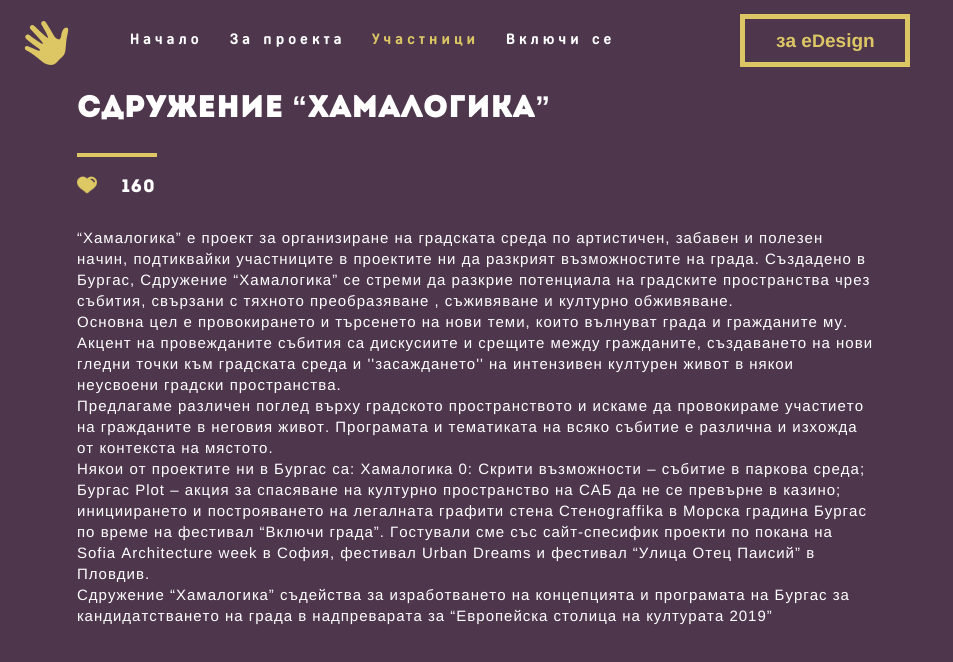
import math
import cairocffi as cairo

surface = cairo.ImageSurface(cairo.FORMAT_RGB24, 953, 662)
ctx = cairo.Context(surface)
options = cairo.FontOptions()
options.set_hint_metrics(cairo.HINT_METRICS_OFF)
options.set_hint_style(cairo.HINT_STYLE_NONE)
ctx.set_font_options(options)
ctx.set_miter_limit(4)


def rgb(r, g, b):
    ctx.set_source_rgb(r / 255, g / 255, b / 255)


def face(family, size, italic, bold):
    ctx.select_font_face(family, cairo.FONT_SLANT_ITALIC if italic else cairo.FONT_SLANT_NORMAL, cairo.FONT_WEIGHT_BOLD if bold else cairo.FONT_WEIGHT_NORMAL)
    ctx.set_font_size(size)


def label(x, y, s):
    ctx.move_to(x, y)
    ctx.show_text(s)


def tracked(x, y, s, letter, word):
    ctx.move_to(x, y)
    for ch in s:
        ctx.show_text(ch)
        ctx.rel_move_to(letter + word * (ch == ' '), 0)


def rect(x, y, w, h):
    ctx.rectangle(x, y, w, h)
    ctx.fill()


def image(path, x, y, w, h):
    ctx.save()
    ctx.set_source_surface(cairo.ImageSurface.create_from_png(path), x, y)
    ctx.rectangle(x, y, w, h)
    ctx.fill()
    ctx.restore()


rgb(78, 54, 77)
ctx.paint()
image('image0.png', 24, 21, 45, 44)
face('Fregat', 15, 0, 1)
rgb(255, 255, 255)
tracked(130, 44, 'Начало', 4, 0)
tracked(230, 44, 'За проекта', 4, 0)
rgb(220, 199, 100)
tracked(372, 44, 'Участници', 4, 0)
rgb(255, 255, 255)
tracked(506, 44, 'Включи се', 4, 0)
ctx.rectangle(742.5, 16.5, 165, 48)
rgb(220, 199, 100)
ctx.set_line_width(5)
ctx.stroke()
face('Liberation Sans', 19, 0, 1)
label(776, 47, 'за e')
face('Liberation Sans', 18, 0, 1)
label(812, 47, 'D')
face('Liberation Sans', 19, 0, 1)
label(825, 47, 'esign')
face('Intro', 30, 0, 1)
rgb(255, 255, 255)
tracked(77, 117, 'Сдружение', 1, 0)
face('Liberation Sans', 30, 0, 1)
tracked(292, 117, '“', 1, 0)
face('Intro', 30, 0, 1)
tracked(308, 117, 'Хамалогика', 1, 0)
face('Liberation Sans', 30, 0, 1)
tracked(535, 117, '”', 1, 0)
rgb(221, 200, 100)
rect(77, 153, 80, 4)
image('image1.png', 77, 176, 20, 18)
face('Intro', 18, 0, 0)
rgb(255, 255, 255)
tracked(122, 192, '160', 1, 0)
face('Liberation Sans', 15, 0, 0)
tracked(77, 243, '“Хамалогика” е проект за организиране на градската среда по артистичен, забавен и полезен', 1, 0)
tracked(77, 264, 'начин, подтиквайки участниците в проектите ни да разкрият възможностите на града. Създадено в', 1, 0)
tracked(77, 285, 'Бургас, Сдружение “Хамалогика” се стреми да разкрие потенциала на градските пространства чрез', 1, 0)
tracked(77, 306, 'събития, свързани с тяхното преобразяване , съживяване и културно обживяване.', 1, 0)
tracked(77, 327, 'Основна цел е провокирането и търсенето на нови теми, които вълнуват града и гражданите му.', 1, 0)
tracked(77, 348, 'Акцент на провежданите събития са дискусиите и срещите между гражданите, създаването на нови', 1, 0)
tracked(77, 369, 'гледни точки към градската среда и \'\'засаждането\'\' на интензивен културен живот в някои', 1, 0)
tracked(77, 390, 'неусвоени градски пространства.', 1, 0)
tracked(77, 411, 'Предлагаме различен поглед върху градското пространството и искаме да провокираме участието', 1, 0)
tracked(77, 432, 'на гражданите в неговия живот. Програмата и тематиката на всяко събитие е различна и изхожда', 1, 0)
tracked(77, 453, 'от контекста на мястото.', 1, 0)
tracked(77, 474, 'Някои от проектите ни в Бургас са: Хамалогика 0: Скрити възможности – събитие в паркова среда;', 1, 0)
tracked(77, 495, 'Бургас Plot – акция за спасяване на културно пространство на САБ да не се превърне в казино;', 1, 0)
tracked(77, 516, 'инициирането и построяването на легалната графити стена Стеноgraffika в Морска градина Бургас', 1, 0)
tracked(77, 537, 'по време на фестивал “Включи града”. Гостували сме със сайт-спесифик проекти по покана на', 1, 0)
tracked(77, 558, 'Sofia Architecture week в София, фестивал Urban Dreams и фестивал “Улица Отец Паисий” в', 1, 0)
tracked(77, 579, 'Пловдив.', 1, 0)
tracked(77, 600, 'Сдружение “Хамалогика” съдейства за изработването на концепцията и програмата на Бургас за', 1, 0)
tracked(77, 621, 'кандидатстването на града в надпреварата за “Европейска столица на културата 2019”', 1, 0)
surface.write_to_png('render.png')
